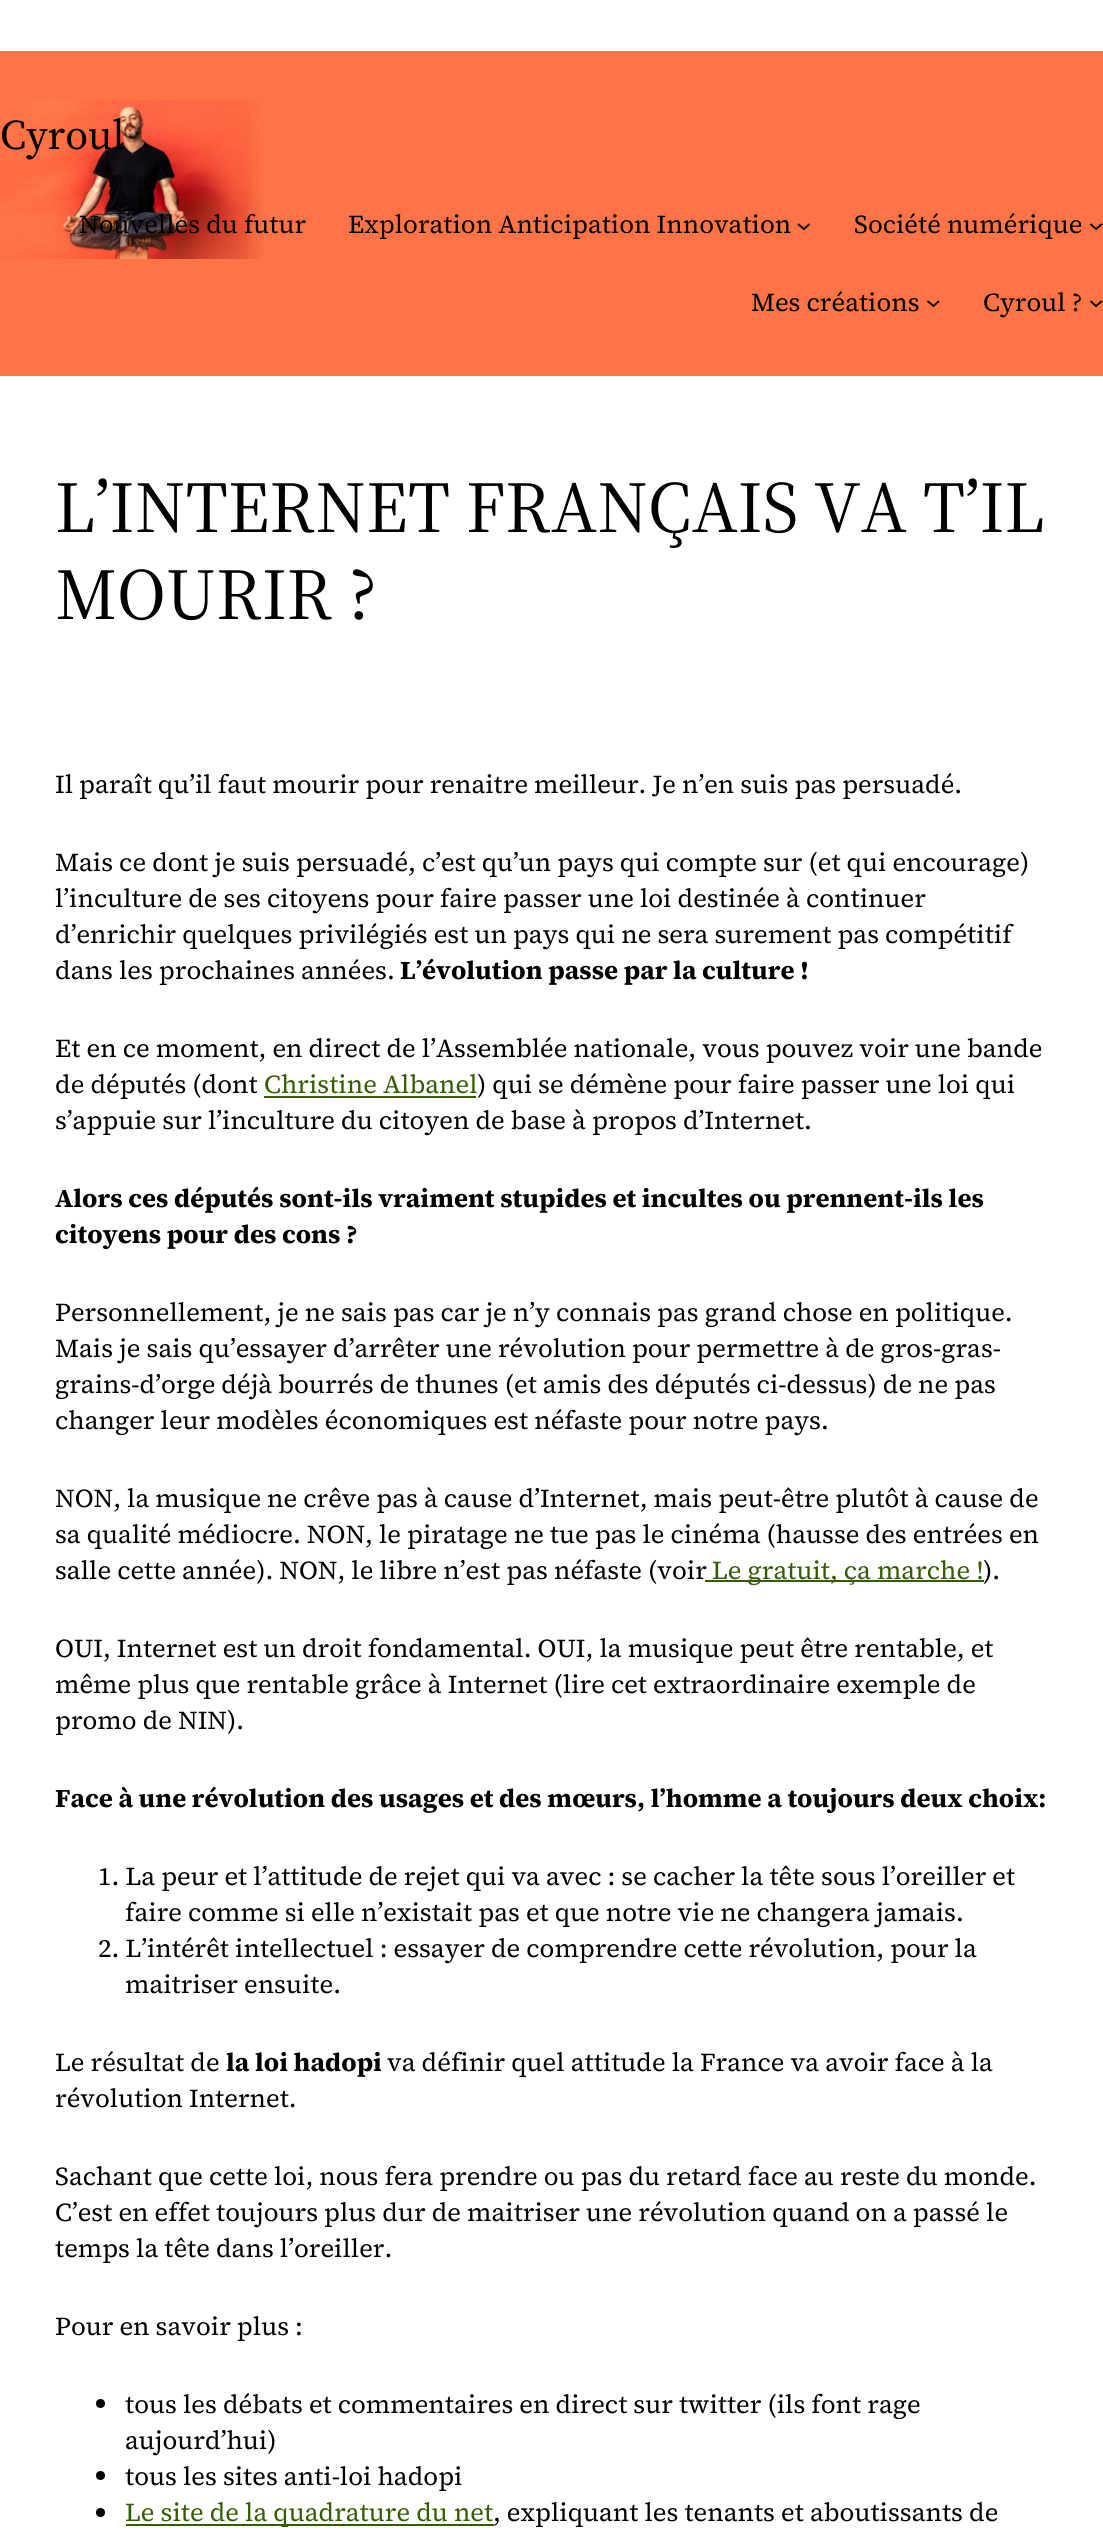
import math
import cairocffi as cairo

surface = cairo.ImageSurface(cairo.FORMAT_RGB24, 1103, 2542)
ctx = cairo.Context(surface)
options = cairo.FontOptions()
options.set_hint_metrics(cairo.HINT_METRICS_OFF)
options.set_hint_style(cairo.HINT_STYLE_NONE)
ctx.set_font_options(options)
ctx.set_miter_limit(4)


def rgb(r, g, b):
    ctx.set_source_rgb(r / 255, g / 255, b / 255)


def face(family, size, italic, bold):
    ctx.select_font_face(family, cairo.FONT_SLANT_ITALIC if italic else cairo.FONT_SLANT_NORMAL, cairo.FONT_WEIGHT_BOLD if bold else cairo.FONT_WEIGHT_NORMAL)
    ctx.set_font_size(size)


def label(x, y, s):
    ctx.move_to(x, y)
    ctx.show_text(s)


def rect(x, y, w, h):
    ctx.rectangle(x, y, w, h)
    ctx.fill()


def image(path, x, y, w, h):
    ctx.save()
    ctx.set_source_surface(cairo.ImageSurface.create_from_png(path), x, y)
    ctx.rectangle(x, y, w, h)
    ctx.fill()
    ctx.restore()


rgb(255, 255, 255)
ctx.paint()
rgb(255, 116, 70)
rect(0, 51, 1103, 325)
image('image0.png', 0, 99, 264, 160)
face('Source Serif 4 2', 42, 0, 0)
rgb(0, 0, 0)
label(0, 149, 'Cyroul')
face('Source Serif 4', 25.75, 0, 0)
label(79, 233, 'Nouvelles du futur')
label(348, 233, 'Exploration Anticipation Innovation')
ctx.new_path()
ctx.move_to(798, 224)
ctx.line_to(804, 229)
ctx.line_to(809.5, 224)
ctx.set_line_width(1.9)
ctx.stroke()
label(854, 233, 'Société numérique')
ctx.new_path()
ctx.move_to(1090.5, 224)
ctx.line_to(1096, 229)
ctx.line_to(1102, 224)
ctx.stroke()
label(751, 311, 'Mes créations')
ctx.new_path()
ctx.move_to(927.5, 301)
ctx.line_to(933.5, 306)
ctx.line_to(939, 301)
ctx.stroke()
label(983, 311, 'Cyroul ?')
ctx.new_path()
ctx.move_to(1090.5, 301)
ctx.line_to(1096, 306)
ctx.line_to(1102, 301)
ctx.stroke()
face('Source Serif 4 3', 72.7, 0, 0)
label(55, 532, 'L’INTERNET FRANÇAIS VA T’IL')
label(55, 619, 'MOURIR ?')
face('Source Serif 4', 25.75, 0, 0)
label(55, 793, 'Il paraît qu’il faut mourir pour renaitre meilleur. Je n’en suis pas persuadé.')
label(55, 871, 'Mais ce dont je suis persuadé, c’est qu’un pays qui compte sur (et qui encourage)')
label(55, 907, 'l’inculture de ses citoyens pour faire passer une loi destinée à continuer')
label(55, 943, 'd’enrichir quelques privilégiés est un pays qui ne sera surement pas compétitif')
label(55, 979, 'dans les prochaines années.')
face('Source Serif 4', 25.75, 0, 1)
label(400, 979, 'L’évolution passe par la culture !')
face('Source Serif 4', 25.75, 0, 0)
label(55, 1057, 'Et en ce moment, en direct de l’Assemblée nationale, vous pouvez voir une bande')
label(55, 1093, 'de députés (dont')
rgb(52, 92, 0)
label(264, 1093, 'Christine Albanel')
rect(264, 1096, 212, 2)
rgb(0, 0, 0)
label(477, 1093, ') qui se démène pour faire passer une loi qui')
label(55, 1129, 's’appuie sur l’inculture du citoyen de base à propos d’Internet.')
face('Source Serif 4', 25.75, 0, 1)
label(55, 1207, 'Alors ces députés sont-ils vraiment stupides et incultes ou prennent-ils les')
label(55, 1243, 'citoyens pour des cons ?')
face('Source Serif 4', 25.75, 0, 0)
label(55, 1321, 'Personnellement, je ne sais pas car je n’y connais pas grand chose en politique.')
label(55, 1357, 'Mais je sais qu’essayer d’arrêter une révolution pour permettre à de gros-gras-')
label(55, 1393, 'grains-d’orge déjà bourrés de thunes (et amis des députés ci-dessus) de ne pas')
label(55, 1429, 'changer leur modèles économiques est néfaste pour notre pays.')
label(55, 1507, 'NON, la musique ne crêve pas à cause d’Internet, mais peut-être plutôt à cause de')
label(55, 1543, 'sa qualité médiocre. NON, le piratage ne tue pas le cinéma (hausse des entrées en')
label(55, 1579, 'salle cette année). NON, le libre n’est pas néfaste (voir')
rgb(52, 92, 0)
rect(705, 1580, 279, 2)
label(712, 1579, 'Le gratuit, ça marche !')
rgb(0, 0, 0)
label(983, 1579, ').')
label(55, 1657, 'OUI, Internet est un droit fondamental. OUI, la musique peut être rentable, et')
label(55, 1693, 'même plus que rentable grâce à Internet (lire cet extraordinaire exemple de')
label(55, 1729, 'promo de NIN).')
face('Source Serif 4', 25.75, 0, 1)
label(55, 1807, 'Face à une révolution des usages et des mœurs, l’homme a toujours deux choix:')
face('Source Serif 4', 25.75, 0, 0)
label(98, 1885, '1. La peur et l’attitude de rejet qui va avec : se cacher la tête sous l’oreiller et')
label(125, 1921, 'faire comme si elle n’existait pas et que notre vie ne changera jamais.')
label(98, 1957, '2. L’intérêt intellectuel : essayer de comprendre cette révolution, pour la')
label(125, 1993, 'maitriser ensuite.')
label(55, 2071, 'Le résultat de')
face('Source Serif 4', 25.75, 0, 1)
label(226, 2071, 'la loi hadopi')
face('Source Serif 4', 25.75, 0, 0)
label(387, 2071, 'va définir quel attitude la France va avoir face à la')
label(55, 2107, 'révolution Internet.')
label(55, 2185, 'Sachant que cette loi, nous fera prendre ou pas du retard face au reste du monde.')
label(55, 2221, 'C’est en effet toujours plus dur de maitriser une révolution quand on a passé le')
label(55, 2257, 'temps la tête dans l’oreiller.')
label(55, 2335, 'Pour en savoir plus :')
ctx.new_path()
ctx.arc(100.5, 2403.5, 4.5, 0, 2 * math.pi)
ctx.fill()
label(125, 2413, 'tous les débats et commentaires en direct sur twitter (ils font rage')
label(125, 2449, 'aujourd’hui)')
ctx.new_path()
ctx.arc(100.5, 2475.5, 4.5, 0, 2 * math.pi)
ctx.fill()
label(125, 2485, 'tous les sites anti-loi hadopi')
ctx.new_path()
ctx.arc(100.5, 2512.5, 4.5, 0, 2 * math.pi)
ctx.fill()
rgb(52, 92, 0)
rect(126, 2524, 368, 2)
label(125, 2521, 'Le site de la quadrature du net')
rgb(0, 0, 0)
label(493, 2521, ', expliquant les tenants et aboutissants de')
surface.write_to_png('render.png')
